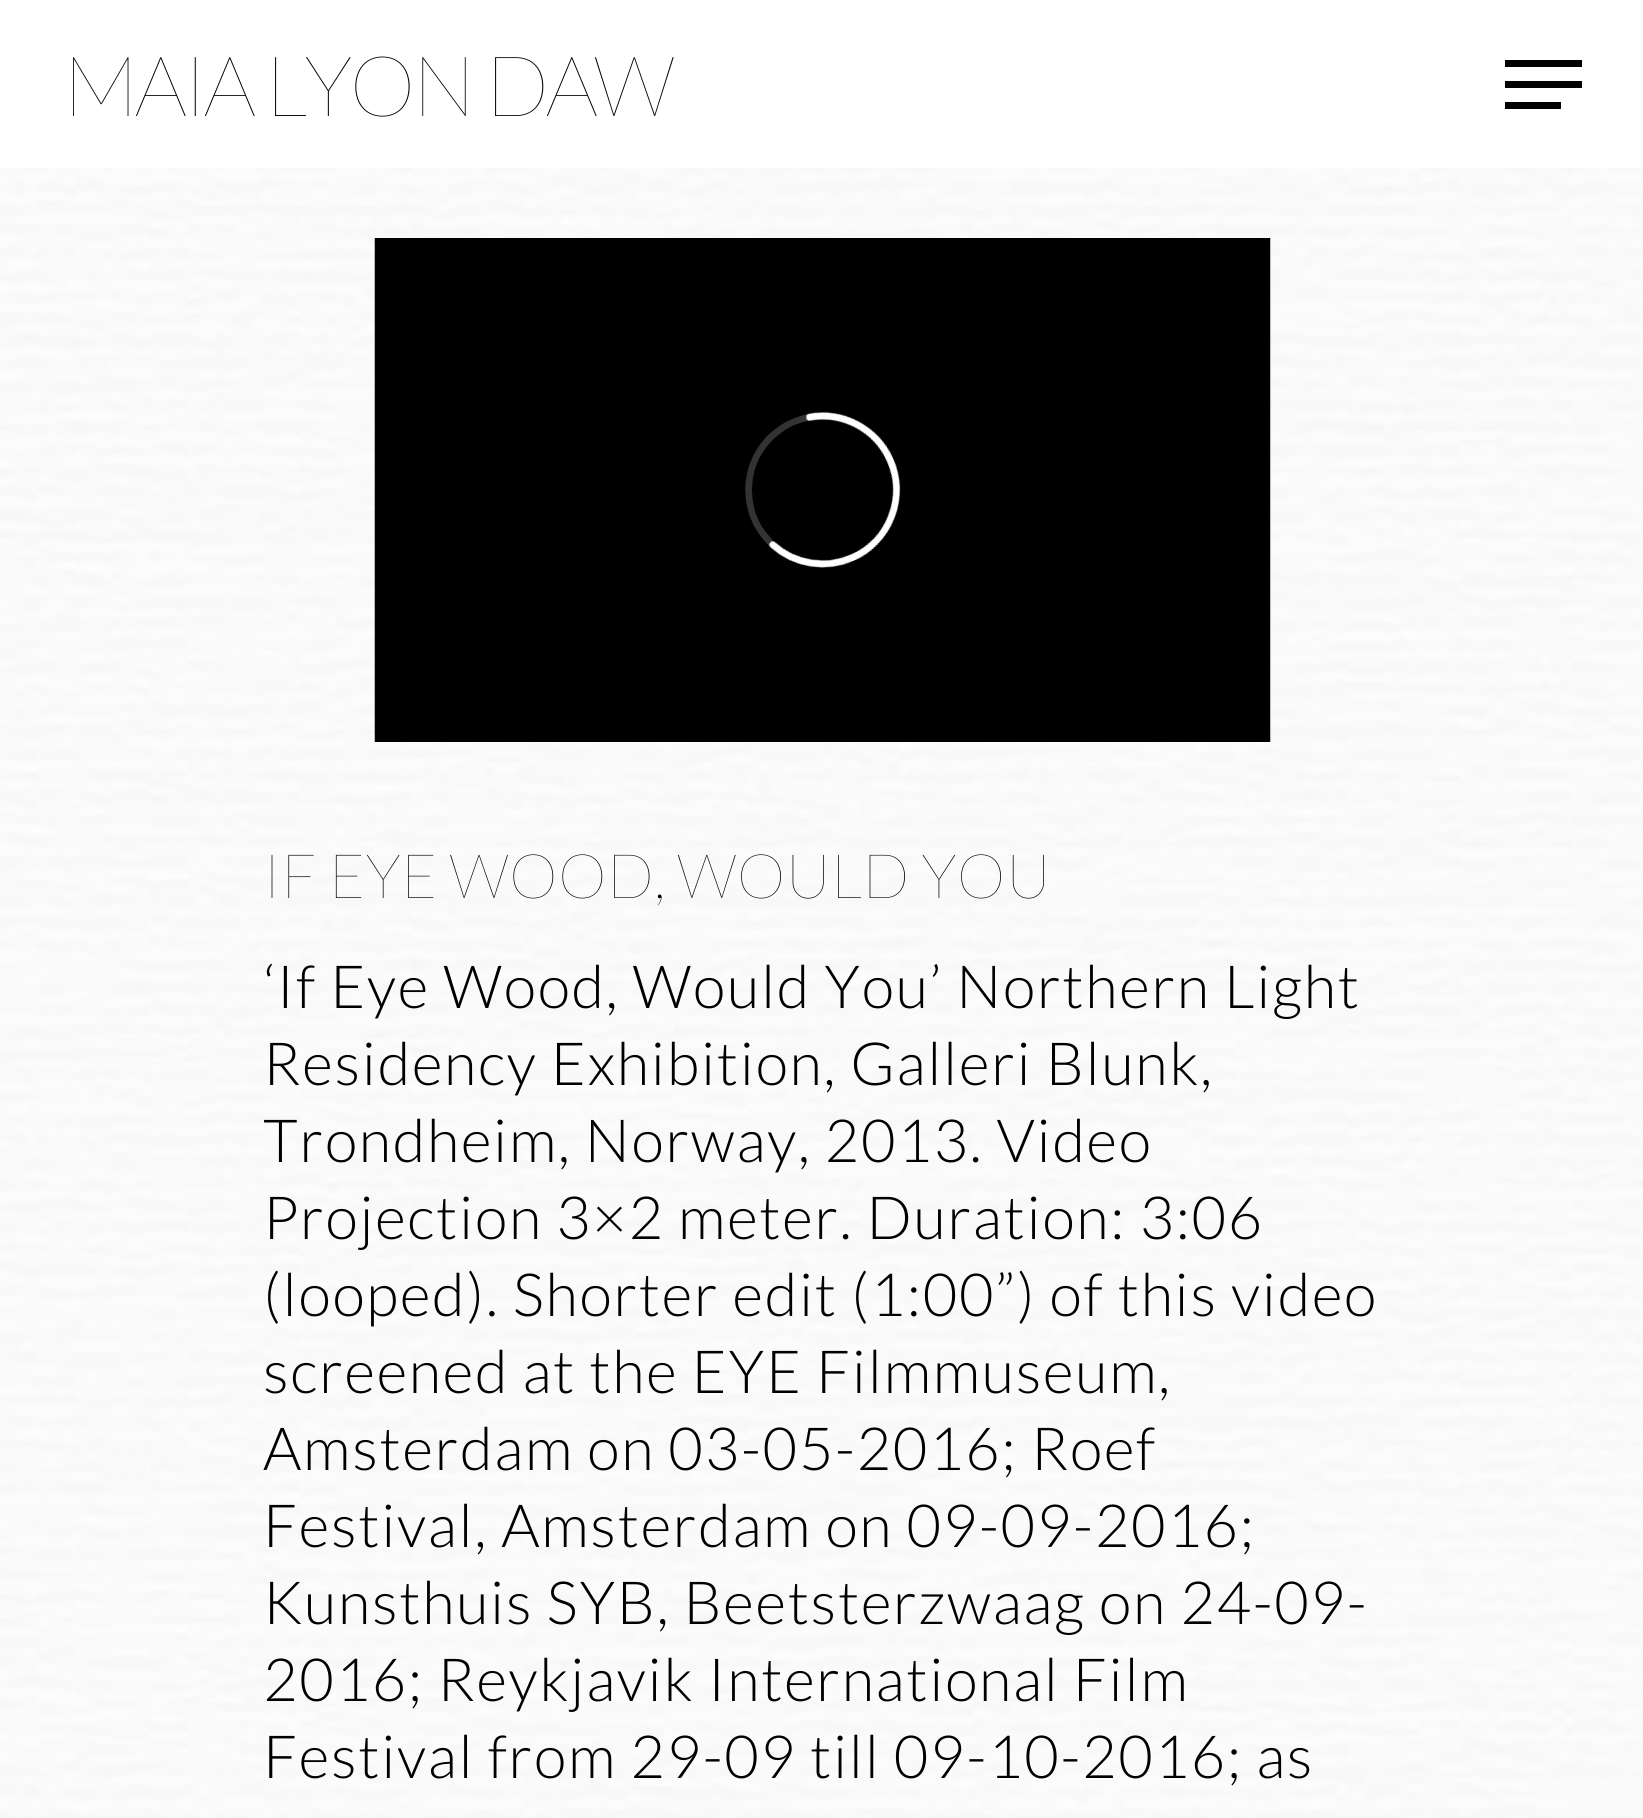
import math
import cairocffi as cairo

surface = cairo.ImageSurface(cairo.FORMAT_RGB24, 1643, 1818)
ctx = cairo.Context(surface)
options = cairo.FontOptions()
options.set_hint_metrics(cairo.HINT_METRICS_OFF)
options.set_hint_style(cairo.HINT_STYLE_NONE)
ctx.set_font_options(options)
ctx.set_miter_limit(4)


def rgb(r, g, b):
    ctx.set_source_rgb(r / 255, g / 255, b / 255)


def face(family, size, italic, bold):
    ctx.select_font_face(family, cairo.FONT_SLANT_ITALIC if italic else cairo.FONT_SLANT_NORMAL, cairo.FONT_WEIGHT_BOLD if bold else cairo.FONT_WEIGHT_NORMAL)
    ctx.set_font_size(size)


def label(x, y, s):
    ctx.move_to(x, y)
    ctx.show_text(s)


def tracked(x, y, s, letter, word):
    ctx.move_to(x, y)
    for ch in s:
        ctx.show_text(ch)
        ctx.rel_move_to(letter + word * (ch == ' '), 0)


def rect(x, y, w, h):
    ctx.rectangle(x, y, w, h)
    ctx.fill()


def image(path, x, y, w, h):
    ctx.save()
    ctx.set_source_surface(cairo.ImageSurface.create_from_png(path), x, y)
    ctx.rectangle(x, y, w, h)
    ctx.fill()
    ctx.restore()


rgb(255, 255, 255)
ctx.paint()
face('Lato Thin', 84, 0, 0)
rgb(0, 0, 0)
tracked(63, 116, 'MAIA LYON DAW', -3.5, 0)
rect(1505, 60, 77, 7)
rect(1505, 102, 56, 7)
rect(1505, 81, 77, 7)
image('image0.png', 0, 168, 1643, 1650)
image('image1.png', 374, 238, 897, 504)
face('Lato Thin', 61.6, 0, 0)
label(263, 898, 'IF EYE WOOD, WOULD YOU')
face('Lato Light', 59.5, 0, 0)
tracked(263, 1008, '‘If Eye Wood, Would You’ Northern Light', 1.75, 0)
tracked(263, 1085, 'Residency Exhibition, Galleri Blunk,', 1.75, 0)
tracked(263, 1162, 'Trondheim, Norway, 2013. Video', 1.75, 0)
tracked(263, 1239, 'Projection 3×2 meter. Duration: 3:06', 1.75, 0)
tracked(263, 1316, '(looped). Shorter edit (1:00”) of this video', 1.75, 0)
tracked(263, 1393, 'screened at the EYE Filmmuseum,', 1.75, 0)
tracked(263, 1470, 'Amsterdam on 03-05-2016; Roef', 1.75, 0)
tracked(263, 1547, 'Festival, Amsterdam on 09-09-2016;', 1.75, 0)
tracked(263, 1624, 'Kunsthuis SYB, Beetsterzwaag on 24-09-', 1.75, 0)
tracked(263, 1701, '2016; Reykjavik International Film', 1.75, 0)
tracked(263, 1778, 'Festival from 29-09 till 09-10-2016; as', 1.75, 0)
surface.write_to_png('render.png')
